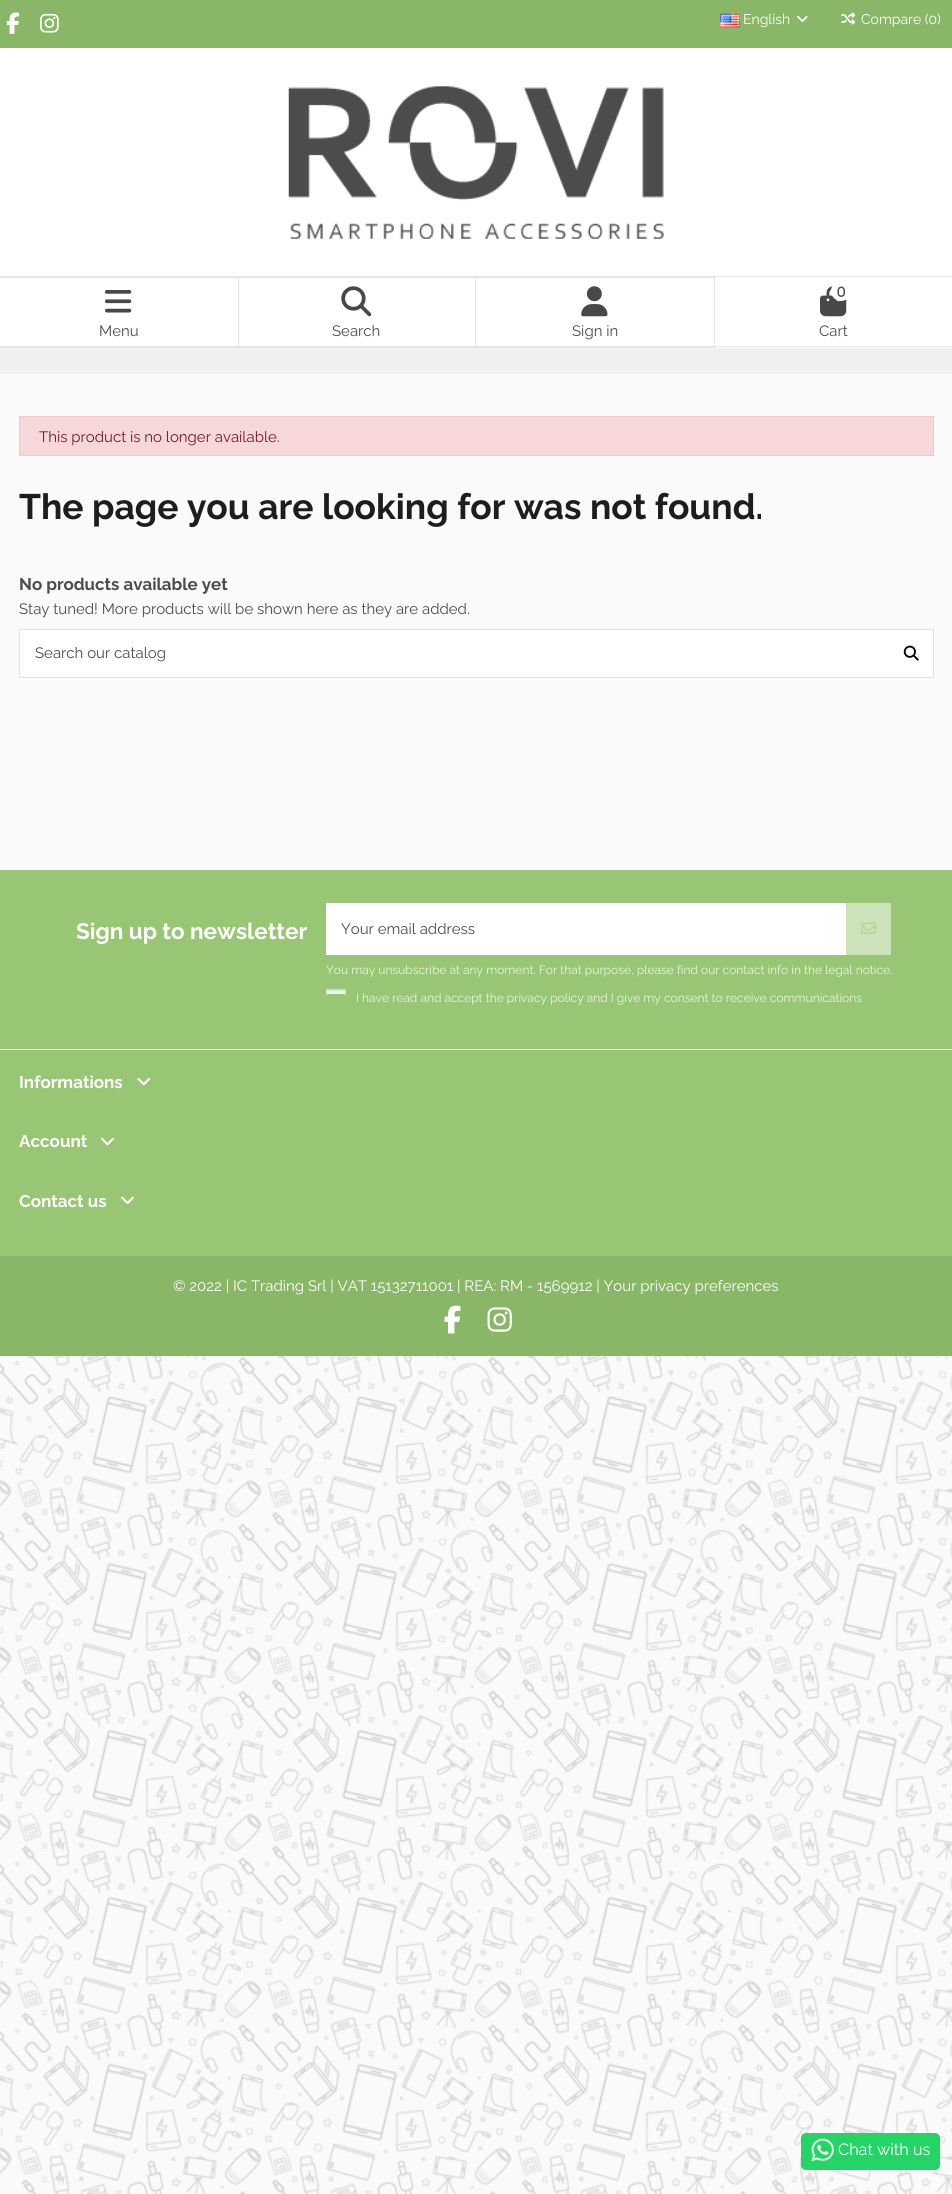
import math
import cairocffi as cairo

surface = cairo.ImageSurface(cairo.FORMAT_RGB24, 952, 2194)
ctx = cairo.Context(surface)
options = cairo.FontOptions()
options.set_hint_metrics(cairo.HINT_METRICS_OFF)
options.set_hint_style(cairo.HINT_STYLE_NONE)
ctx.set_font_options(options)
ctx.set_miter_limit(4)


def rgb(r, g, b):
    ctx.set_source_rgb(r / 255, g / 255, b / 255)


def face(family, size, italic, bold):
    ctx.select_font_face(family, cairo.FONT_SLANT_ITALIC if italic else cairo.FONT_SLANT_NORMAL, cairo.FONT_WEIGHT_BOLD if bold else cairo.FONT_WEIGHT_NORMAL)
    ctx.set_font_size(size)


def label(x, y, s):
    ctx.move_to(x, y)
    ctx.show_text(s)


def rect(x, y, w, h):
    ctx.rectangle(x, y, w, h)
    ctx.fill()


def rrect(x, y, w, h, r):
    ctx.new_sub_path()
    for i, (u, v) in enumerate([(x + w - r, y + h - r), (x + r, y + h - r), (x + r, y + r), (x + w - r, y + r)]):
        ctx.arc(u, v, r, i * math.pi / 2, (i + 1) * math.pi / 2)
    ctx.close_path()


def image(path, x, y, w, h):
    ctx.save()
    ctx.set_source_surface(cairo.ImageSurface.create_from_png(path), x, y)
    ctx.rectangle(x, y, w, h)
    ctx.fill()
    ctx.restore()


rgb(255, 255, 255)
ctx.paint()
image('image0.png', 0, 1356, 952, 838)
rgb(137, 183, 103)
rect(0, 0, 952, 48)
image('image1.png', 6, 12, 14, 22)
image('image2.png', 40, 13, 19, 20)
image('image3.png', 720, 13, 20, 15)
face('Raleway', 14, 0, 0)
rgb(255, 255, 255)
label(743, 24, 'English')
image('image4.png', 797, 16, 11, 6)
image('image5.png', 841, 12, 15, 13)
label(861, 24, 'Compare (0)')
image('image6.png', 288, 86, 376, 153)
rgb(229, 229, 229)
ctx.new_path()
ctx.move_to(0, 276)
ctx.line_to(239, 276)
ctx.line_to(238, 278)
ctx.line_to(0, 278)
ctx.close_path()
ctx.fill()
ctx.set_source_rgba(0.082, 0.082, 0.082, 0.11)
ctx.new_path()
ctx.move_to(239, 276)
ctx.line_to(239, 348)
ctx.line_to(238, 346)
ctx.line_to(238, 278)
ctx.close_path()
ctx.fill()
ctx.new_path()
ctx.move_to(239, 348)
ctx.line_to(0, 348)
ctx.line_to(0, 346)
ctx.line_to(238, 346)
ctx.close_path()
ctx.fill()
image('image7.png', 105, 290, 27, 23)
face('Raleway', 15, 0, 0)
rgb(76, 76, 76)
label(99, 336, 'Menu')
rgb(229, 229, 229)
ctx.new_path()
ctx.move_to(239, 276)
ctx.line_to(476, 276)
ctx.line_to(475, 278)
ctx.line_to(239, 278)
ctx.close_path()
ctx.fill()
ctx.set_source_rgba(0.082, 0.082, 0.082, 0.11)
ctx.new_path()
ctx.move_to(476, 276)
ctx.line_to(476, 348)
ctx.line_to(475, 346)
ctx.line_to(475, 278)
ctx.close_path()
ctx.fill()
ctx.new_path()
ctx.move_to(476, 348)
ctx.line_to(239, 348)
ctx.line_to(239, 346)
ctx.line_to(475, 346)
ctx.close_path()
ctx.fill()
image('image8.png', 341, 286, 31, 31)
rgb(76, 76, 76)
label(332, 336, 'Search')
rgb(229, 229, 229)
ctx.new_path()
ctx.move_to(476, 276)
ctx.line_to(715, 276)
ctx.line_to(714, 278)
ctx.line_to(476, 278)
ctx.close_path()
ctx.fill()
ctx.set_source_rgba(0.082, 0.082, 0.082, 0.11)
ctx.new_path()
ctx.move_to(715, 276)
ctx.line_to(715, 348)
ctx.line_to(714, 346)
ctx.line_to(714, 278)
ctx.close_path()
ctx.fill()
ctx.new_path()
ctx.move_to(715, 348)
ctx.line_to(476, 348)
ctx.line_to(476, 346)
ctx.line_to(714, 346)
ctx.close_path()
ctx.fill()
image('image9.png', 581, 286, 27, 31)
rgb(76, 76, 76)
label(572, 336, 'Sign in')
rgb(229, 229, 229)
rect(715, 276, 237, 1)
rect(715, 346, 237, 1)
image('image11.png', 820, 286, 27, 31)
rgb(255, 255, 255)
ctx.arc(841, 291, 10, 0, 2 * math.pi)
ctx.fill()
image('image10.png', 837, 286, 8, 11)
rgb(76, 76, 76)
label(819, 336, 'Cart')
rgb(250, 250, 250)
rect(0, 374, 952, 496)
rgb(240, 240, 240)
rect(0, 348, 952, 26)
rgb(248, 215, 218)
ctx.rectangle(19.5, 416.5, 914, 39)
ctx.fill_preserve()
rgb(245, 198, 203)
ctx.set_line_width(1)
ctx.stroke()
rgb(114, 28, 36)
label(39, 442, 'This product is no longer available.')
face('Raleway', 35.4, 0, 1)
rgb(29, 29, 29)
label(19, 519, 'The page you are looking for was not found.')
face('Raleway', 16.9, 0, 1)
rgb(76, 76, 76)
label(19, 590, 'No products available yet')
face('Raleway', 15, 0, 0)
label(19, 614, 'Stay tuned! More products will be shown here as they are added.')
rgb(255, 255, 255)
rect(20, 630, 913, 46)
ctx.rectangle(19.5, 629.5, 914, 48)
rgb(227, 227, 227)
ctx.stroke()
rgb(76, 76, 76)
label(35, 658, 'Search our catalog')
image('image12.png', 903, 645, 16, 16)
rgb(152, 198, 117)
rect(0, 870, 952, 386)
face('Raleway', 22.5, 0, 1)
rgb(255, 255, 255)
label(76, 939, 'Sign up to newsletter')
rect(326, 903, 520, 52)
face('Raleway', 15, 0, 0)
rgb(76, 76, 76)
label(341, 934, 'Your email address')
rgb(204, 227, 186)
rect(846, 903, 45, 52)
image('image13.png', 861, 922, 16, 12)
face('Raleway', 12, 0, 0)
rgb(234, 244, 227)
label(326, 974, 'You may unsubscribe at any moment. For that purpose, please find our contact info in the legal notice.')
rect(327, 990, 18, 5)
rgb(216, 226, 209)
rect(328, 990, 17, 1)
ctx.rectangle(326.5, 989.5, 19, 19)
rgb(212, 221, 205)
ctx.stroke()
rgb(234, 244, 227)
label(356, 1002, 'I have read and accept the privacy policy and I give my consent to receive communications')
rgb(152, 198, 117)
rrect(326.5, 994.5, 19, 19, 2)
ctx.fill_preserve()
ctx.stroke()
rgb(255, 255, 255)
rect(0, 1049, 952, 1)
face('Raleway', 17, 0, 1)
label(19, 1088, 'Informations')
image('image14.png', 137, 1077, 14, 9)
label(19, 1147, 'Account')
image('image15.png', 101, 1137, 13, 9)
label(19, 1207, 'Contact us')
image('image16.png', 121, 1196, 13, 9)
rgb(137, 183, 103)
rect(0, 1256, 952, 100)
face('Raleway', 15, 0, 0)
rgb(255, 255, 255)
label(173, 1291, '© 2022 | IC Trading Srl | VAT 15132711001 | REA: RM - 1569912 | Your privacy preferences')
image('image17.png', 444, 1305, 17, 29)
image('image18.png', 487, 1307, 25, 25)
rgb(37, 211, 102)
rrect(801, 2133, 139, 37, 5)
ctx.fill()
image('image19.png', 810, 2138, 24, 24)
face('Raleway', 16.25, 0, 0)
rgb(255, 255, 255)
label(838, 2155, 'Chat with us')
surface.write_to_png('render.png')
